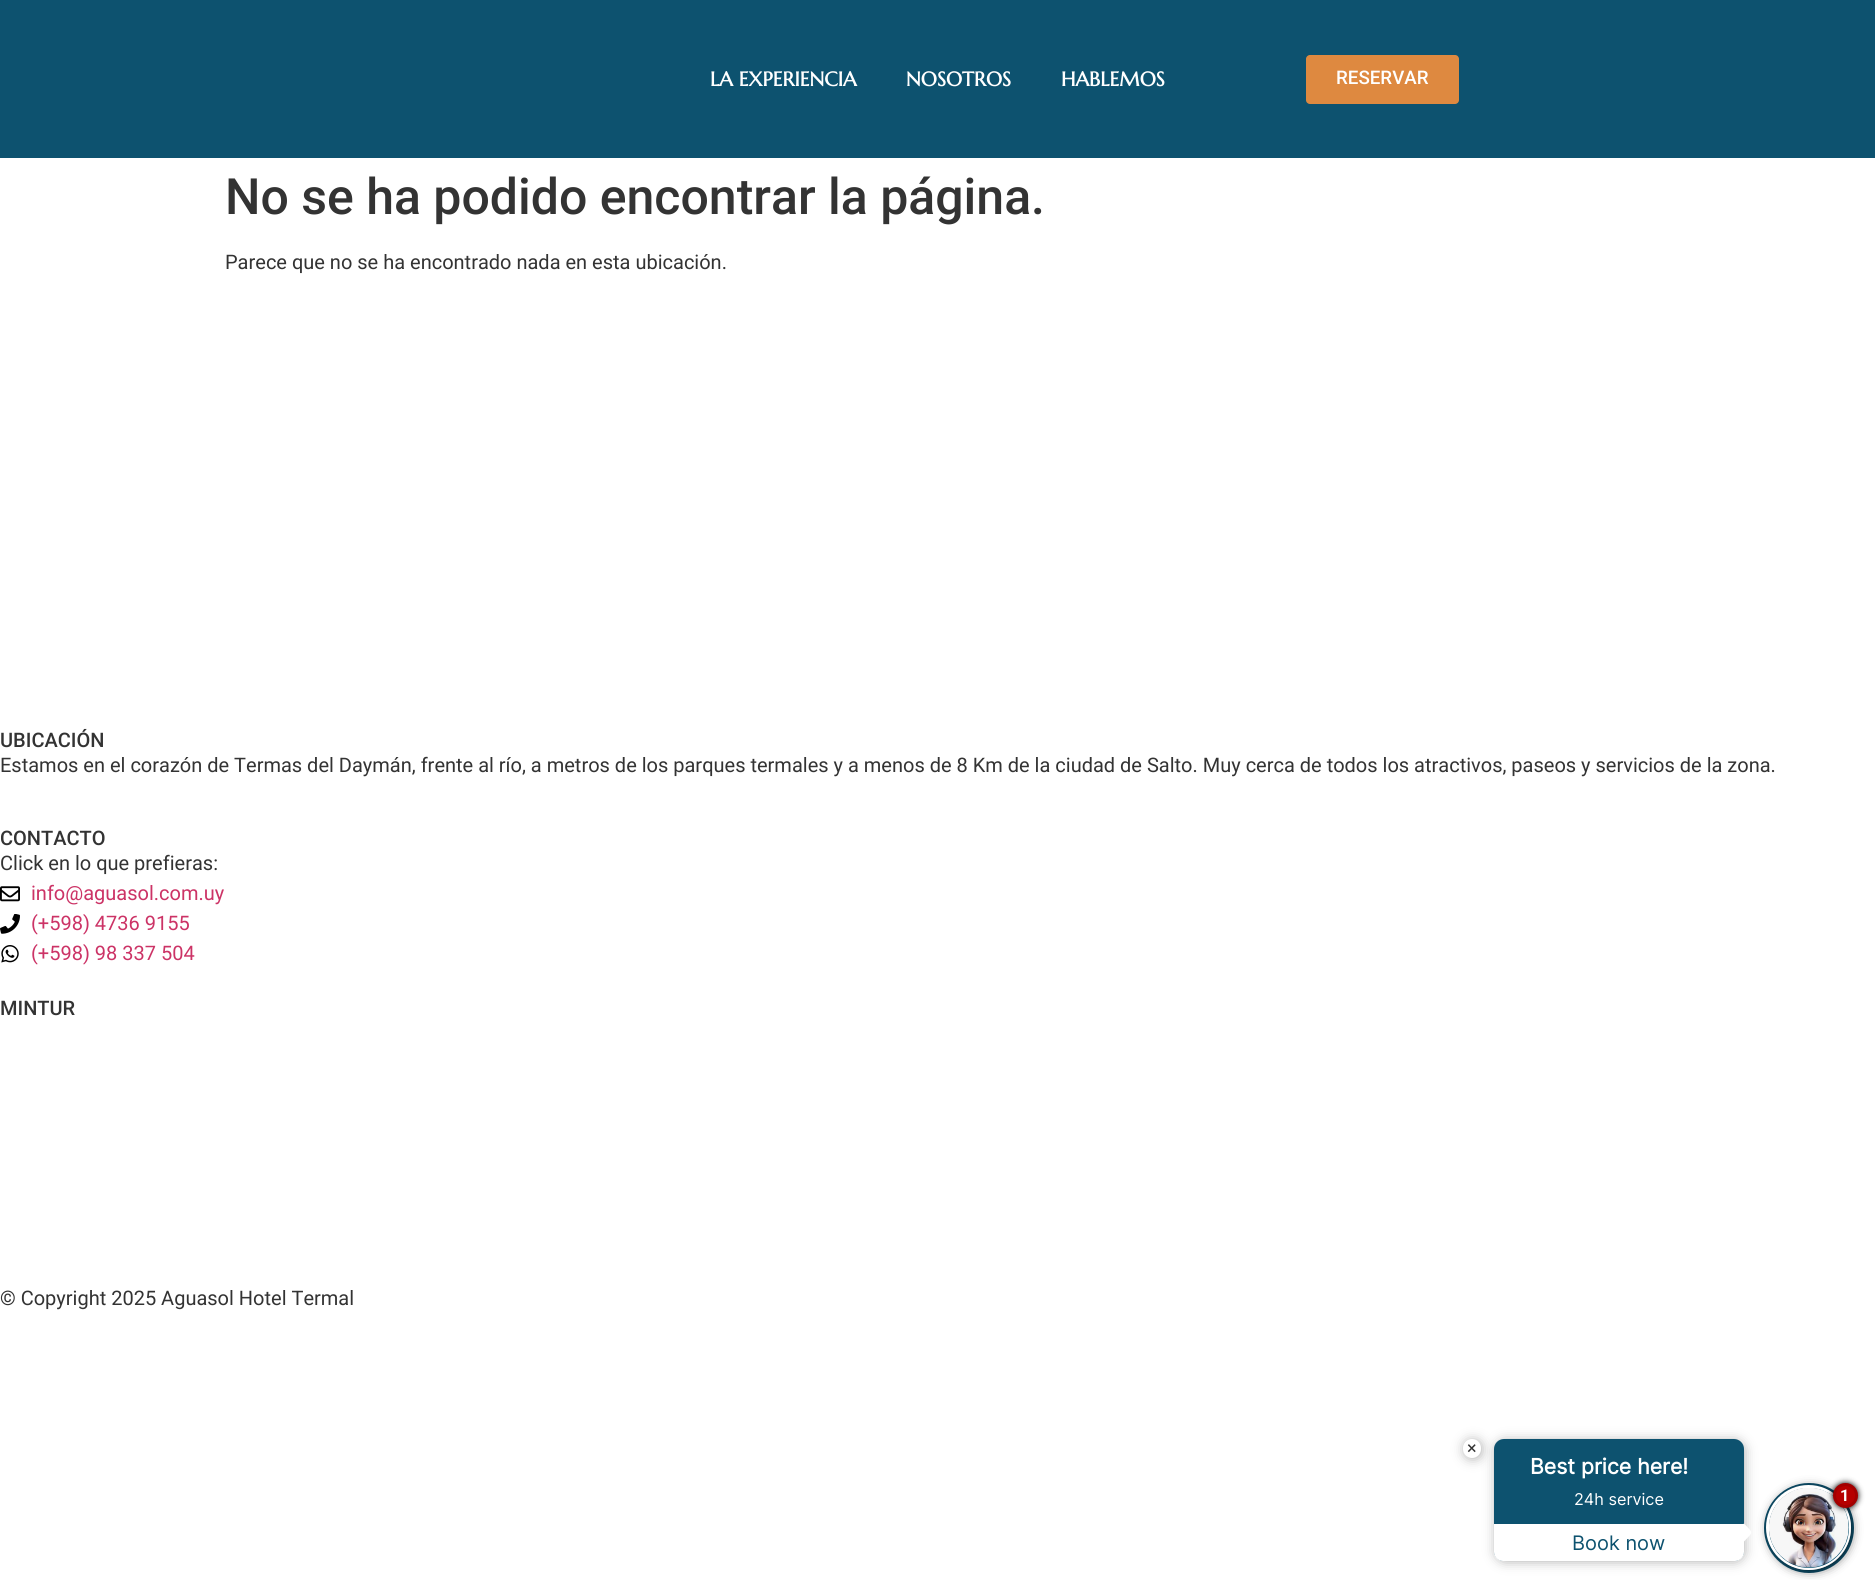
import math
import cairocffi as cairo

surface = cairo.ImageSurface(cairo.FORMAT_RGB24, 1875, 1580)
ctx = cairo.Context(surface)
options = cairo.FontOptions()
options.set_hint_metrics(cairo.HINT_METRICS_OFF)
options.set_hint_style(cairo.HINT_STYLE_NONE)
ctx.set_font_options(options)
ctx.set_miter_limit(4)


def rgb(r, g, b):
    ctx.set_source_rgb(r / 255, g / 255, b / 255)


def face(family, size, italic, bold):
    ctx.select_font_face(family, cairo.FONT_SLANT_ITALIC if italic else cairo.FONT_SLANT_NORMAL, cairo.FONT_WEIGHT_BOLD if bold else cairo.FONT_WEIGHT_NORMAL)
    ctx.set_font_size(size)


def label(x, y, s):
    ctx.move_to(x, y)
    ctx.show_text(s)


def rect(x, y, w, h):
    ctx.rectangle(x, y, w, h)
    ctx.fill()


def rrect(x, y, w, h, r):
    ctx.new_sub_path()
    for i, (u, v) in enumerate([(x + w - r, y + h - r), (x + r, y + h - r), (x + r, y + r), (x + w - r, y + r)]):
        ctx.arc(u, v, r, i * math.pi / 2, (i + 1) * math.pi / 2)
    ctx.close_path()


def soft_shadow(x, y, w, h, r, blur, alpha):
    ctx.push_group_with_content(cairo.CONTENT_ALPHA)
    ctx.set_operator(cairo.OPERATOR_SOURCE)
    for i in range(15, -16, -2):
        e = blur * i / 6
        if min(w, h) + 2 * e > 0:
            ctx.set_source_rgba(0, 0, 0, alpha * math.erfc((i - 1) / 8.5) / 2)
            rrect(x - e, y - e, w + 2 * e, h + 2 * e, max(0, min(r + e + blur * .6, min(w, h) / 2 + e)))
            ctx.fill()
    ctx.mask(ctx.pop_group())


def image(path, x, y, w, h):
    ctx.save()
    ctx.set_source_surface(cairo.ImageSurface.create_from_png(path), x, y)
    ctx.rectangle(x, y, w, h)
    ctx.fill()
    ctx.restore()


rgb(255, 255, 255)
ctx.paint()
rgb(13, 82, 111)
rect(0, 0, 1875, 158)
face('Marcellus', 20, 0, 1)
rgb(255, 255, 255)
label(710, 86, 'LA EXPERIENCIA')
label(906, 86, 'NOSOTROS')
label(1061, 86, 'HABLEMOS')
rgb(222, 137, 64)
rrect(1306, 55, 153, 49, 4)
ctx.fill()
face('Roboto Medium', 18.75, 0, 0)
rgb(255, 255, 255)
label(1336, 84, 'RESERVAR')
face('Roboto Medium', 50, 0, 0)
rgb(51, 51, 51)
label(225, 214, 'No se ha podido encontrar la página.')
face('Roboto', 20, 0, 0)
label(225, 269, 'Parece que no se ha encontrado nada en esta ubicación.')
face('Roboto Medium', 20, 0, 0)
label(0, 747, 'UBICACIÓN')
face('Roboto', 20, 0, 0)
label(0, 772, 'Estamos en el corazón de Termas del Daymán, frente al río, a metros de los parques termales y a menos de 8 Km de la ciudad de Salto. Muy cerca de todos los atractivos, paseos y servicios de la zona.')
face('Roboto Medium', 20, 0, 0)
label(0, 845, 'CONTACTO')
face('Roboto', 20, 0, 0)
label(0, 870, 'Click en lo que prefieras:')
image('image0.png', 0, 886, 20, 16)
rgb(204, 51, 102)
label(31, 900, 'info@aguasol.com.uy')
image('image1.png', 0, 914, 20, 20)
label(31, 930, '(+598) 4736 9155')
image('image2.png', 1, 945, 18, 18)
label(31, 960, '(+598) 98 337 504')
face('Roboto Medium', 20, 0, 0)
rgb(51, 51, 51)
label(0, 1015, 'MINTUR')
face('Roboto', 20, 0, 0)
label(0, 1305, '© Copyright 2025 Aguasol Hotel Termal')
ctx.new_path()
ctx.arc(1809, 1528, 43.5, 0, 2 * math.pi)
rgb(13, 82, 111)
ctx.set_line_width(3)
ctx.stroke()
rgb(0, 0, 0)
soft_shadow(1771, 1490, 78, 78, 39, 6, 1)
ctx.arc(1808.5, 1527.5, 41, 0, 2 * math.pi)
rgb(255, 255, 255)
ctx.stroke()
rgb(170, 170, 170)
soft_shadow(1496, 1441, 248, 120, 9, 6, 1)
rgb(13, 82, 111)
rrect(1494, 1439, 250, 122, 10)
ctx.fill()
rgb(170, 170, 170)
soft_shadow(1465, 1441, 16, 17, 8, 6, 1)
rgb(255, 255, 255)
rrect(1463, 1439, 18, 19, 9)
ctx.fill()
face('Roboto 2', 18, 0, 0)
rgb(51, 51, 51)
label(1467, 1454, '×')
face('Inter', 21.25, 0, 1)
rgb(255, 255, 255)
label(1530, 1474, 'Best price here!')
face('Inter', 16.25, 0, 0)
label(1574, 1505, '24h service')
ctx.new_path()
ctx.move_to(1494, 1524)
ctx.line_to(1744, 1524)
ctx.line_to(1744, 1552)
ctx.curve_to(1744, 1557, 1740, 1561, 1735, 1561)
ctx.line_to(1503, 1561)
ctx.curve_to(1498, 1561, 1494, 1557, 1494, 1552)
ctx.close_path()
ctx.fill()
face('Inter', 20, 0, 0)
rgb(13, 82, 111)
label(1572, 1550, 'Book now')
rgb(255, 255, 255)
ctx.new_path()
ctx.move_to(1744, 1523.5)
ctx.curve_to(1753.5, 1533.5, 1753.5, 1531.5, 1744, 1541.5)
ctx.line_to(1735, 1532.5)
ctx.close_path()
ctx.fill()
rgb(13, 82, 111)
ctx.arc(1809, 1528, 40, 0, 2 * math.pi)
ctx.fill()
image('image3.png', 1769, 1488, 80, 80)
rgb(0, 0, 0)
soft_shadow(1833, 1483, 25, 25, 12.5, 3, 1)
rgb(182, 0, 0)
ctx.arc(1845.5, 1495.5, 11, 0, 2 * math.pi)
ctx.fill_preserve()
rgb(163, 0, 0)
ctx.stroke()
face('Roboto', 16.25, 0, 1)
rgb(255, 255, 255)
label(1840, 1501, '1')
surface.write_to_png('render.png')
